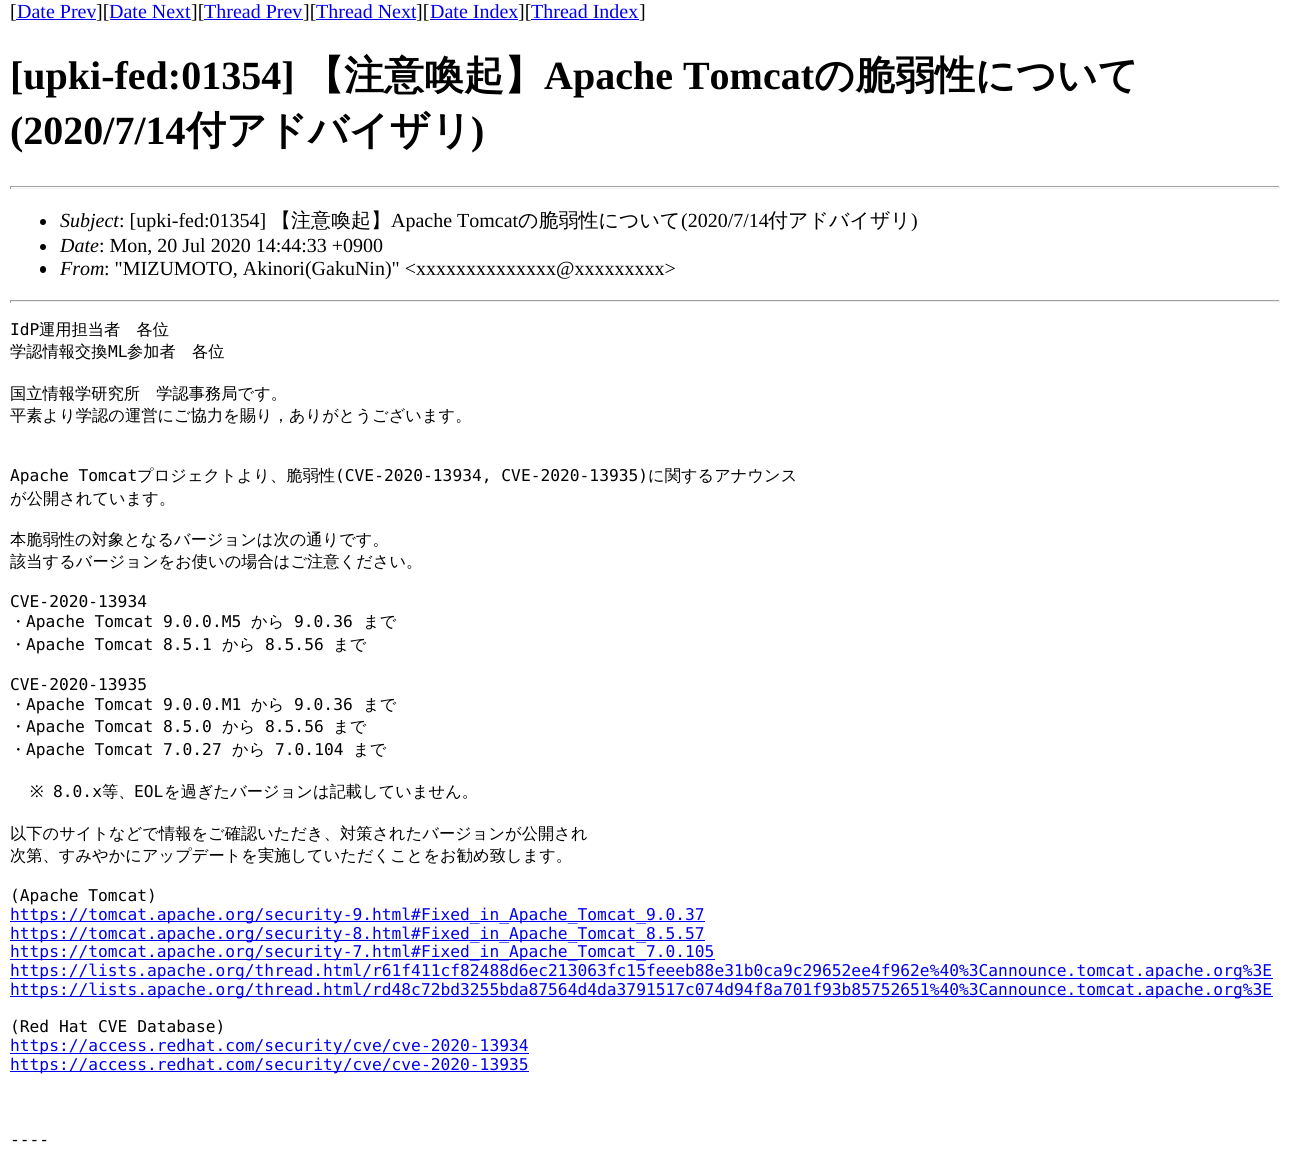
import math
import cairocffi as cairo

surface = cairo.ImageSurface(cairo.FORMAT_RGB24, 1289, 1152)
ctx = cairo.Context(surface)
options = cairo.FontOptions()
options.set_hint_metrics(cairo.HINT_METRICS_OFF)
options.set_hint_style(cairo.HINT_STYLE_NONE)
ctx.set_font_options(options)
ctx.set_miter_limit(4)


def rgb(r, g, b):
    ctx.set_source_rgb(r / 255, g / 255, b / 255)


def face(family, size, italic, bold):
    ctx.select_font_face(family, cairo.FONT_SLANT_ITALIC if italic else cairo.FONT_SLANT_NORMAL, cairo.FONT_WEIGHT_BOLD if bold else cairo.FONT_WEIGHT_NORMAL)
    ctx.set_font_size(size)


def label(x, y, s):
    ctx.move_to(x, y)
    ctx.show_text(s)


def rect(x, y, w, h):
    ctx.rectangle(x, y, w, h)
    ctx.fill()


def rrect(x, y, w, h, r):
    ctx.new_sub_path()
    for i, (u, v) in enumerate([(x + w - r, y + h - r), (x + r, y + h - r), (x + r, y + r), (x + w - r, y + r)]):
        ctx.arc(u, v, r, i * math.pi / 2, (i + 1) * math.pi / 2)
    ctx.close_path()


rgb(255, 255, 255)
ctx.paint()
face('Liberation Serif', 20, 0, 0)
rgb(0, 0, 0)
label(10, 18, '[')
rgb(0, 0, 238)
label(17, 18, 'Date Prev')
rect(16, 19, 80, 1)
rgb(0, 0, 0)
label(96, 18, '][')
rgb(0, 0, 238)
label(109, 18, 'Date Next')
rect(110, 19, 81, 1)
rgb(0, 0, 0)
label(191, 18, '][')
rgb(0, 0, 238)
label(204, 18, 'Thread Prev')
rect(204, 19, 99, 1)
rgb(0, 0, 0)
label(303, 18, '][')
rgb(0, 0, 238)
label(316, 18, 'Thread Next')
rect(316, 19, 100, 1)
rgb(0, 0, 0)
label(416, 18, '][')
rgb(0, 0, 238)
label(430, 18, 'Date Index')
rect(430, 19, 88, 1)
rgb(0, 0, 0)
label(518, 18, '][')
rgb(0, 0, 238)
label(531, 18, 'Thread Index')
rect(531, 19, 108, 1)
rgb(0, 0, 0)
label(639, 18, ']')
face('Liberation Serif', 40, 0, 1)
label(10, 89, '[upki-fed:01354]')
face('WenQuanYi Zen Hei', 40, 0, 1)
label(304, 89, '【注意喚起】')
face('Liberation Serif', 40, 0, 1)
label(544, 89, 'Apache Tomcat')
face('WenQuanYi Zen Hei', 40, 0, 1)
label(814, 89, 'の脆弱性について')
face('Liberation Serif', 40, 0, 1)
label(10, 144, '(2020/7/14')
face('WenQuanYi Zen Hei', 40, 0, 1)
label(186, 144, '付アドバイザリ')
face('Liberation Serif', 40, 0, 1)
label(471, 144, ')')
rgb(159, 159, 159)
rect(10, 186, 1270, 1)
rgb(238, 238, 238)
rect(1279, 186, 1, 3)
rect(10, 188, 1270, 1)
rgb(159, 159, 159)
rect(10, 186, 1, 3)
rgb(0, 0, 0)
ctx.new_path()
ctx.arc(43, 222, 3, 0, 2 * math.pi)
ctx.fill()
face('Liberation Serif', 20, 1, 0)
label(60, 227, 'Subject')
face('Liberation Serif', 20, 0, 0)
label(119, 227, ': [upki-fed:01354]')
face('WenQuanYi Zen Hei Medium', 20, 0, 0)
label(271, 227, '【注意喚起】')
face('Liberation Serif', 20, 0, 0)
label(391, 227, 'Apache Tomcat')
face('WenQuanYi Zen Hei Medium', 20, 0, 0)
label(518, 227, 'の脆弱性について')
face('Liberation Serif', 20, 0, 0)
label(681, 227, '(2020/7/14')
face('WenQuanYi Zen Hei Medium', 20, 0, 0)
label(768, 227, '付アドバイザリ')
face('Liberation Serif', 20, 0, 0)
label(911, 227, ')')
ctx.new_path()
ctx.arc(43, 247, 3, 0, 2 * math.pi)
ctx.fill()
face('Liberation Serif', 20, 1, 0)
label(60, 252, 'Date')
face('Liberation Serif', 20, 0, 0)
label(99, 252, ': Mon, 20 Jul 2020 14:44:33 +0900')
rrect(40, 266, 6, 7, 3)
ctx.fill()
face('Liberation Serif', 20, 1, 0)
label(60, 275, 'From')
face('Liberation Serif', 20, 0, 0)
label(104, 275, ': "MIZUMOTO, Akinori(GakuNin)" <xxxxxxxxxxxxxx@xxxxxxxxx>')
rgb(159, 159, 159)
rect(10, 300, 1270, 1)
rgb(238, 238, 238)
rect(1279, 300, 1, 3)
rect(10, 301, 1270, 1)
rgb(159, 159, 159)
rect(10, 300, 1, 3)
face('DejaVu Sans Mono', 16.25, 0, 0)
rgb(0, 0, 0)
label(10, 335, 'IdP')
face('WenQuanYi Zen Hei Medium', 16.25, 0, 0)
label(39, 335, '運用担当者　各位')
label(10, 357, '学認情報交換')
face('DejaVu Sans Mono', 16.25, 0, 0)
label(108, 357, 'ML')
face('WenQuanYi Zen Hei Medium', 16.25, 0, 0)
label(127, 357, '参加者　各位')
label(10, 399, '国立情報学研究所　学認事務局です。')
label(10, 421, '平素より学認の運営にご協力を賜り，ありがとうございます。')
face('DejaVu Sans Mono', 16.25, 0, 0)
label(10, 481, 'Apache Tomcat')
face('WenQuanYi Zen Hei Medium', 16.25, 0, 0)
label(137, 481, 'プロジェクトより、脆弱性')
face('DejaVu Sans Mono', 16.25, 0, 0)
label(335, 481, '(CVE-2020-13934, CVE-2020-13935)')
face('WenQuanYi Zen Hei Medium', 16.25, 0, 0)
label(648, 481, 'に関するアナウンス')
label(10, 504, 'が公開されています。')
label(10, 545, '本脆弱性の対象となるバージョンは次の通りです。')
label(10, 567, '該当するバージョンをお使いの場合はご注意ください。')
face('DejaVu Sans Mono', 16.25, 0, 0)
label(10, 607, 'CVE-2020-13934')
face('WenQuanYi Zen Hei Medium', 16.25, 0, 0)
label(10, 627, '・')
face('DejaVu Sans Mono', 16.25, 0, 0)
label(26, 627, 'Apache Tomcat 9.0.0.M5')
face('WenQuanYi Zen Hei Medium', 16.25, 0, 0)
label(251, 627, 'から')
face('DejaVu Sans Mono', 16.25, 0, 0)
label(294, 627, '9.0.36')
face('WenQuanYi Zen Hei Medium', 16.25, 0, 0)
label(363, 627, 'まで')
label(10, 650, '・')
face('DejaVu Sans Mono', 16.25, 0, 0)
label(26, 650, 'Apache Tomcat 8.5.1')
face('WenQuanYi Zen Hei Medium', 16.25, 0, 0)
label(222, 650, 'から')
face('DejaVu Sans Mono', 16.25, 0, 0)
label(265, 650, '8.5.56')
face('WenQuanYi Zen Hei Medium', 16.25, 0, 0)
label(333, 650, 'まで')
face('DejaVu Sans Mono', 16.25, 0, 0)
label(10, 690, 'CVE-2020-13935')
face('WenQuanYi Zen Hei Medium', 16.25, 0, 0)
label(10, 710, '・')
face('DejaVu Sans Mono', 16.25, 0, 0)
label(26, 710, 'Apache Tomcat 9.0.0.M1')
face('WenQuanYi Zen Hei Medium', 16.25, 0, 0)
label(251, 710, 'から')
face('DejaVu Sans Mono', 16.25, 0, 0)
label(294, 710, '9.0.36')
face('WenQuanYi Zen Hei Medium', 16.25, 0, 0)
label(363, 710, 'まで')
label(10, 732, '・')
face('DejaVu Sans Mono', 16.25, 0, 0)
label(26, 732, 'Apache Tomcat 8.5.0')
face('WenQuanYi Zen Hei Medium', 16.25, 0, 0)
label(222, 732, 'から')
face('DejaVu Sans Mono', 16.25, 0, 0)
label(265, 732, '8.5.56')
face('WenQuanYi Zen Hei Medium', 16.25, 0, 0)
label(333, 732, 'まで')
label(10, 755, '・')
face('DejaVu Sans Mono', 16.25, 0, 0)
label(26, 755, 'Apache Tomcat 7.0.27')
face('WenQuanYi Zen Hei Medium', 16.25, 0, 0)
label(232, 755, 'から')
face('DejaVu Sans Mono', 16.25, 0, 0)
label(275, 755, '7.0.104')
face('WenQuanYi Zen Hei Medium', 16.25, 0, 0)
label(353, 755, 'まで')
face('Noto Sans', 16.25, 0, 0)
label(30, 797, '※')
face('DejaVu Sans Mono', 16.25, 0, 0)
label(53, 797, '8.0.x')
face('WenQuanYi Zen Hei Medium', 16.25, 0, 0)
label(102, 797, '等、')
face('DejaVu Sans Mono', 16.25, 0, 0)
label(134, 797, 'EOL')
face('WenQuanYi Zen Hei Medium', 16.25, 0, 0)
label(164, 797, 'を過ぎたバージョンは記載していません。')
label(10, 839, '以下のサイトなどで情報をご確認いただき、対策されたバージョンが公開され')
label(10, 861, '次第、すみやかにアップデートを実施していただくことをお勧め致します。')
face('DejaVu Sans Mono', 16.25, 0, 0)
label(10, 901, '(Apache Tomcat)')
rgb(0, 0, 238)
rect(10, 921, 695, 1)
label(10, 920, 'https://tomcat.apache.org/security-9.html#Fixed_in_Apache_Tomcat_9.0.37')
rect(10, 940, 695, 1)
label(10, 939, 'https://tomcat.apache.org/security-8.html#Fixed_in_Apache_Tomcat_8.5.57')
rect(10, 959, 705, 1)
label(10, 957, 'https://tomcat.apache.org/security-7.html#Fixed_in_Apache_Tomcat_7.0.105')
rect(10, 978, 1263, 1)
label(10, 976, 'https://lists.apache.org/thread.html/r61f411cf82488d6ec213063fc15feeeb88e31b0ca9c29652ee4f962e%40%3Cannounce.tomcat.apache.org%3E')
rect(10, 996, 1263, 1)
label(10, 995, 'https://lists.apache.org/thread.html/rd48c72bd3255bda87564d4da3791517c074d94f8a701f93b85752651%40%3Cannounce.tomcat.apache.org%3E')
rgb(0, 0, 0)
label(10, 1032, '(Red Hat CVE Database)')
rgb(0, 0, 238)
rect(10, 1053, 519, 1)
label(10, 1051, 'https://access.redhat.com/security/cve/cve-2020-13934')
rect(10, 1071, 519, 1)
label(10, 1070, 'https://access.redhat.com/security/cve/cve-2020-13935')
rgb(0, 0, 0)
label(10, 1145, '----')
surface.write_to_png('render.png')
